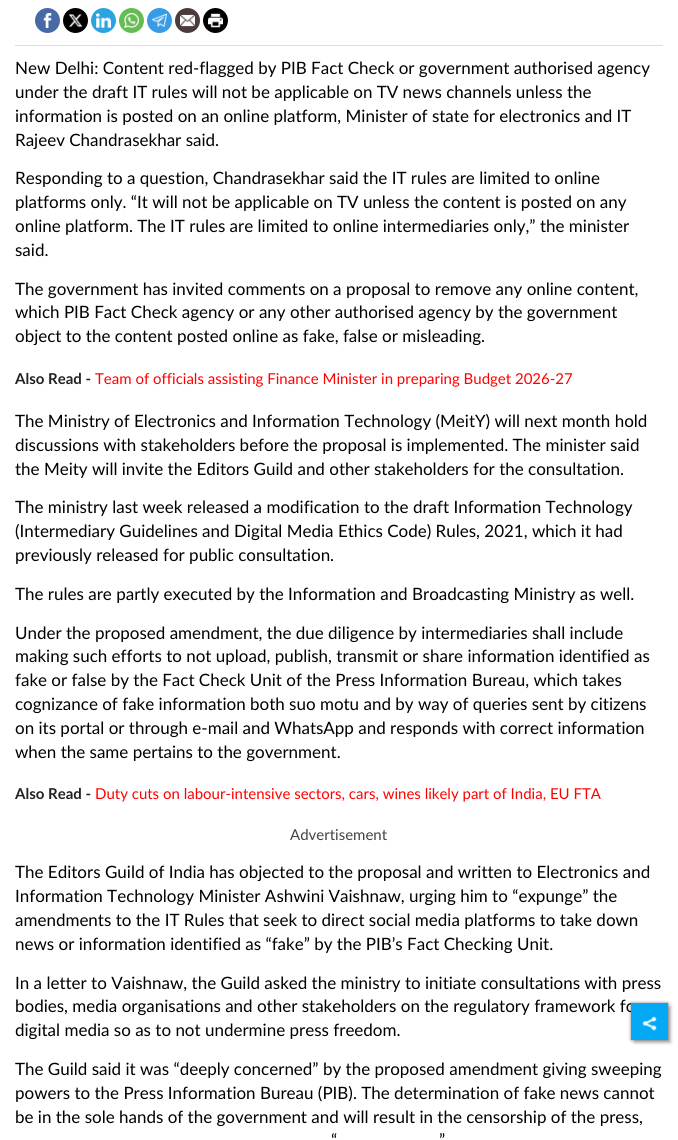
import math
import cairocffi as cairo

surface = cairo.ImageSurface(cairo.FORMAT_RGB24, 678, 1140)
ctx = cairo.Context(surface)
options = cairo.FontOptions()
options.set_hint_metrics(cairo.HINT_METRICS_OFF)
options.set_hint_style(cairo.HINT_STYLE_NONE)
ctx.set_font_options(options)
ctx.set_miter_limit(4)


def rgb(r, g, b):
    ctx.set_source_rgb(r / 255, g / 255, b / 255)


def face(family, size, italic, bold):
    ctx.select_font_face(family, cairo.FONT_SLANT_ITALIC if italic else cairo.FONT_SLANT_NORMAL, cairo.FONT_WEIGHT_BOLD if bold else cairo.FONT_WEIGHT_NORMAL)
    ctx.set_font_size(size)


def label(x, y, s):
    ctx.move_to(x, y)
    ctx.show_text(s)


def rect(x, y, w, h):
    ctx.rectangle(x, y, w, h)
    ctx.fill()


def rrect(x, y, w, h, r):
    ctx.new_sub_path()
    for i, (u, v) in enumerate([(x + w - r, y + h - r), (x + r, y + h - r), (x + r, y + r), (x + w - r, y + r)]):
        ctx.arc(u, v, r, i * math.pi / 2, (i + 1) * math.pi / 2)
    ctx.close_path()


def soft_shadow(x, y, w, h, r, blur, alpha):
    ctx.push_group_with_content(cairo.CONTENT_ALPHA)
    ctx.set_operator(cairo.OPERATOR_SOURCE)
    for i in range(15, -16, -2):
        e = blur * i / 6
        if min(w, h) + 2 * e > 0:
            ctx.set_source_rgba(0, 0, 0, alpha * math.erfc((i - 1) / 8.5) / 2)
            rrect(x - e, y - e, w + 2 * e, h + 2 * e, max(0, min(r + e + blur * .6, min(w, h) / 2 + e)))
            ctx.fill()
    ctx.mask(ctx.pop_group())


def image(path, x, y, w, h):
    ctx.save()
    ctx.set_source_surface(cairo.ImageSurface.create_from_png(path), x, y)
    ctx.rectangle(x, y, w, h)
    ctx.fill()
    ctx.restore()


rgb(255, 255, 255)
ctx.paint()
rgb(221, 221, 221)
rect(15, 45, 648, 1)
rgb(71, 105, 165)
ctx.arc(47.5, 20.5, 12.5, 0, 2 * math.pi)
ctx.fill()
image('image0.png', 43, 13, 9, 15)
rgb(0, 0, 0)
ctx.arc(75.5, 20.5, 12.5, 0, 2 * math.pi)
ctx.fill()
image('image1.png', 69, 14, 14, 14)
rgb(43, 163, 225)
ctx.arc(103.5, 20.5, 12.5, 0, 2 * math.pi)
ctx.fill()
image('image2.png', 96, 13, 15, 15)
rgb(101, 188, 84)
ctx.arc(131.5, 20.5, 12.5, 0, 2 * math.pi)
ctx.fill()
image('image3.png', 124, 13, 15, 15)
rgb(55, 155, 229)
ctx.arc(159.5, 20.5, 12.5, 0, 2 * math.pi)
ctx.fill()
image('image4.png', 152, 13, 15, 15)
rgb(75, 59, 59)
ctx.arc(187.5, 20.5, 12.5, 0, 2 * math.pi)
ctx.fill()
image('image5.png', 180, 14, 15, 13)
rgb(0, 0, 0)
ctx.arc(215.5, 20.5, 12.5, 0, 2 * math.pi)
ctx.fill()
image('image6.png', 208, 13, 15, 15)
face('Lato', 17, 0, 0)
label(15, 74, 'New Delhi: Content red-flagged by PIB Fact Check or government authorised agency')
label(15, 98, 'under the draft IT rules will not be applicable on TV news channels unless the')
label(15, 122, 'information is posted on an online platform, Minister of state for electronics and IT')
label(15, 146, 'Rajeev Chandrasekhar said.')
label(15, 184, 'Responding to a question, Chandrasekhar said the IT rules are limited to online')
label(15, 208, 'platforms only. “It will not be applicable on TV unless the content is posted on any')
label(15, 232, 'online platform. The IT rules are limited to online intermediaries only,” the minister')
label(15, 256, 'said.')
label(15, 295, 'The government has invited comments on a proposal to remove any online content,')
label(15, 318, 'which PIB Fact Check agency or any other authorised agency by the government')
label(15, 342, 'object to the content posted online as fake, false or misleading.')
face('Lato', 15, 0, 1)
rgb(34, 34, 34)
label(15, 384, 'Also Read -')
face('Lato', 15, 0, 0)
rgb(255, 0, 0)
label(95, 384, 'Team of officials assisting Finance Minister in preparing Budget 2026-27')
face('Lato', 17, 0, 0)
rgb(0, 0, 0)
label(15, 427, 'The Ministry of Electronics and Information Technology (MeitY) will next month hold')
label(15, 451, 'discussions with stakeholders before the proposal is implemented. The minister said')
label(15, 475, 'the Meity will invite the Editors Guild and other stakeholders for the consultation.')
label(15, 513, 'The ministry last week released a modification to the draft Information Technology')
label(15, 537, '(Intermediary Guidelines and Digital Media Ethics Code) Rules, 2021, which it had')
label(15, 561, 'previously released for public consultation.')
label(15, 600, 'The rules are partly executed by the Information and Broadcasting Ministry as well.')
label(15, 639, 'Under the proposed amendment, the due diligence by intermediaries shall include')
label(15, 662, 'making such efforts to not upload, publish, transmit or share information identified as')
label(15, 686, 'fake or false by the Fact Check Unit of the Press Information Bureau, which takes')
label(15, 710, 'cognizance of fake information both suo motu and by way of queries sent by citizens')
label(15, 734, 'on its portal or through e-mail and WhatsApp and responds with correct information')
label(15, 758, 'when the same pertains to the government.')
face('Lato', 15, 0, 1)
rgb(34, 34, 34)
label(15, 799, 'Also Read -')
face('Lato', 15, 0, 0)
rgb(255, 0, 0)
label(95, 799, 'Duty cuts on labour-intensive sectors, cars, wines likely part of India, EU FTA')
rgb(67, 67, 67)
label(290, 840, 'Advertisement')
face('Lato', 17, 0, 0)
rgb(0, 0, 0)
label(15, 878, 'The Editors Guild of India has objected to the proposal and written to Electronics and')
label(15, 902, 'Information Technology Minister Ashwini Vaishnaw, urging him to “expunge” the')
label(15, 926, 'amendments to the IT Rules that seek to direct social media platforms to take down')
label(15, 950, 'news or information identified as “fake” by the PIB’s Fact Checking Unit.')
label(15, 989, 'In a letter to Vaishnaw, the Guild asked the ministry to initiate consultations with press')
label(15, 1012, 'bodies, media organisations and other stakeholders on the regulatory framework fo')
label(15, 1036, 'digital media so as to not undermine press freedom.')
label(15, 1075, 'The Guild said it was “deeply concerned” by the proposed amendment giving sweeping')
label(15, 1099, 'powers to the Press Information Bureau (PIB). The determination of fake news cannot')
label(15, 1123, 'be in the sole hands of the government and will result in the censorship of the press,')
label(331, 1146, '“')
label(439, 1146, '”')
rgb(0, 0, 0)
soft_shadow(634, 1006, 37, 37, 0, 1.5, 0.25)
soft_shadow(631, 1003, 37, 37, 0, 1.5, 0.5)
rgb(3, 169, 244)
rect(631, 1003, 37, 37)
image('image7.png', 642, 1016, 15, 15)
surface.write_to_png('render.png')
